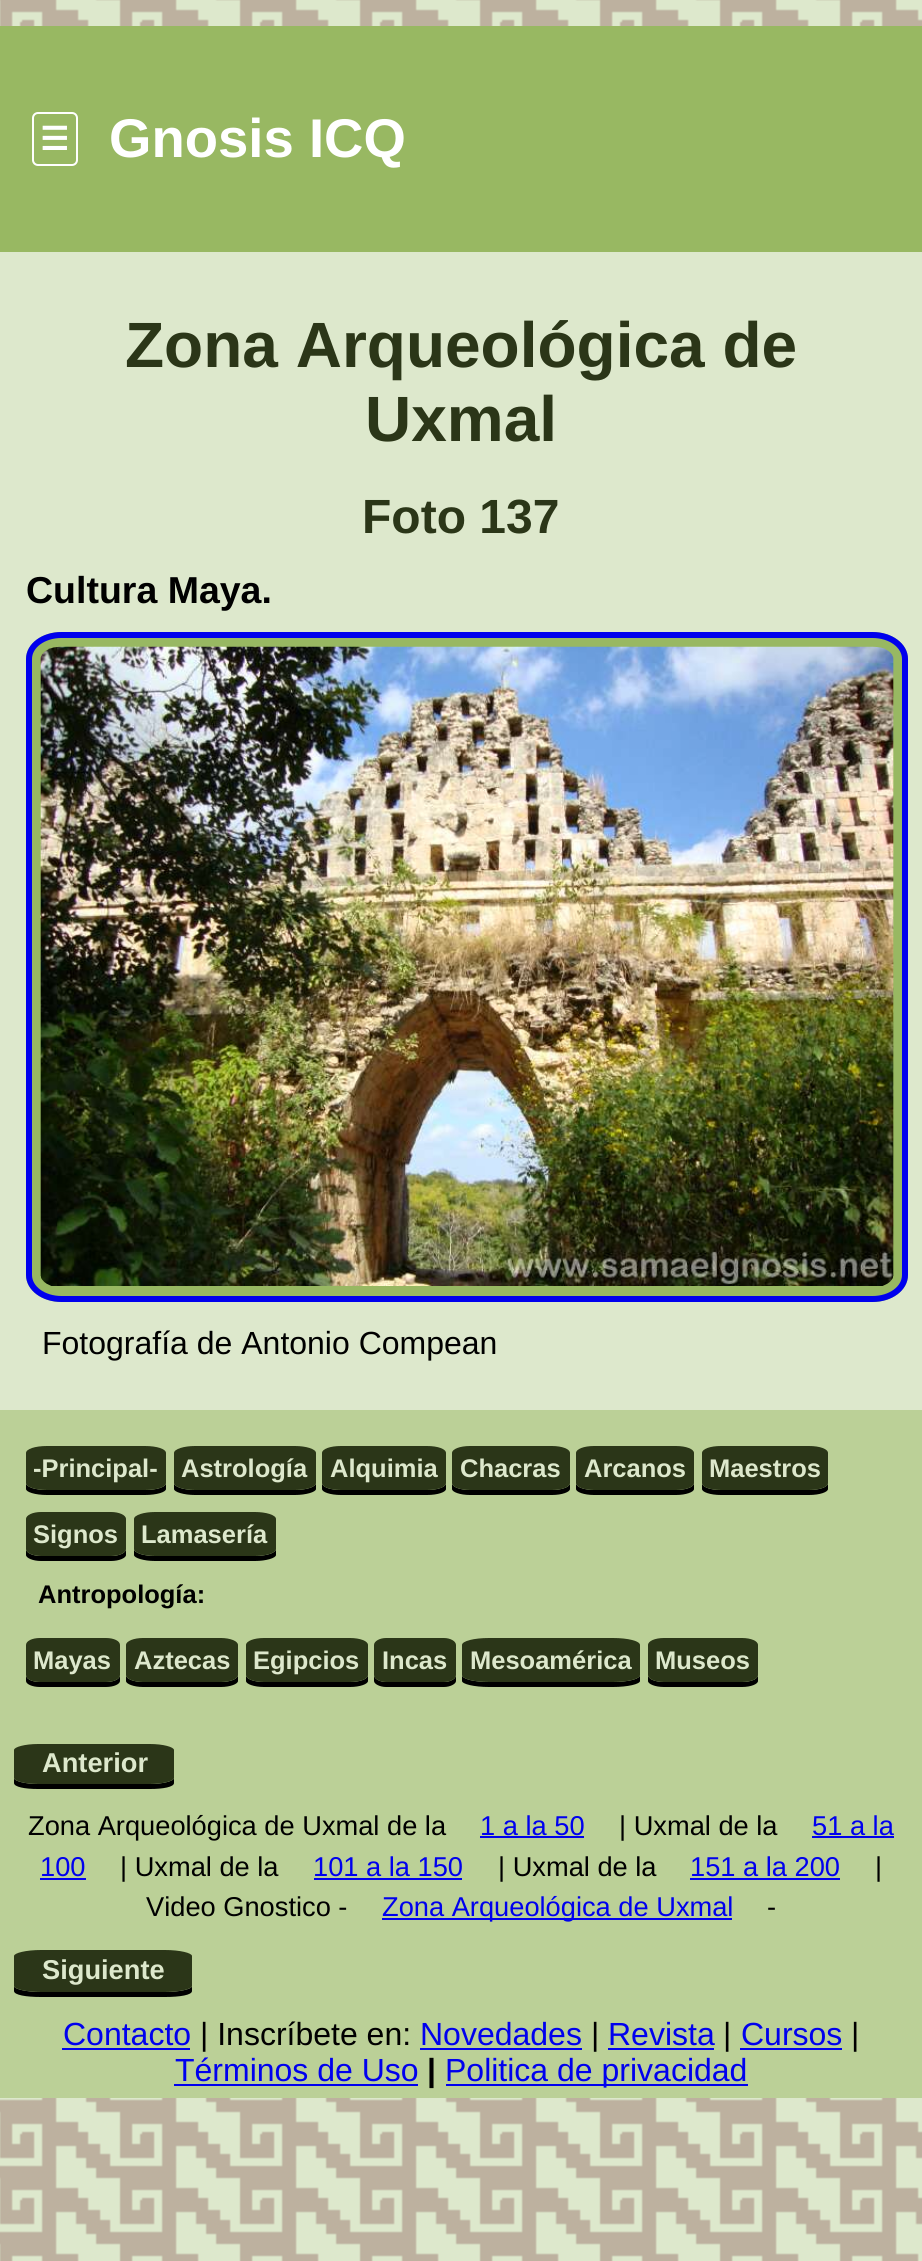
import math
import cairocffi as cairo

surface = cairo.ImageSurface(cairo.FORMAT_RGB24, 922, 2261)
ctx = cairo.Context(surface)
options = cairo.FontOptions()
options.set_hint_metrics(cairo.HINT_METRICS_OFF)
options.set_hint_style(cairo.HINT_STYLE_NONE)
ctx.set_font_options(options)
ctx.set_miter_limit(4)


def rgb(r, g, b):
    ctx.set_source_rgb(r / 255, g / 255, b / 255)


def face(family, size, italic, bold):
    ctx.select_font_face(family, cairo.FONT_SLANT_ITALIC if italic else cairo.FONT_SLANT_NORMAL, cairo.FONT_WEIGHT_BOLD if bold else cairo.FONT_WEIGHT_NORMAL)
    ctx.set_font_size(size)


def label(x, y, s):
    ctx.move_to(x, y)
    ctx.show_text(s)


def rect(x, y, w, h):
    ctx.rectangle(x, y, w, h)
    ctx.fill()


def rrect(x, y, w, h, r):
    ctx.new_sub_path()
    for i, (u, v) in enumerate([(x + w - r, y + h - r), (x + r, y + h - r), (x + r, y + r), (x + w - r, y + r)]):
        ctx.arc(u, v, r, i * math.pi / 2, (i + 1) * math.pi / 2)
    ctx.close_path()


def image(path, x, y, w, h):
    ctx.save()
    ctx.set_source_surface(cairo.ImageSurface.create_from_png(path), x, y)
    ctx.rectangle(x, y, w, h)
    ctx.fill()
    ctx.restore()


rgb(221, 232, 204)
ctx.paint()
image('image0.png', 0, 0, 922, 2261)
rgb(187, 208, 151)
rect(0, 1410, 922, 688)
rgb(152, 184, 98)
rect(0, 26, 922, 226)
rrect(33, 113, 44, 52, 5)
rgb(255, 255, 255)
ctx.stroke()
face('DejaVu Sans', 32, 0, 1)
label(40, 150, '☰')
face('Liberation Sans', 54.5, 0, 1)
label(109, 157, 'Gnosis ICQ')
rgb(221, 232, 204)
rect(0, 252, 922, 1158)
face('Liberation Sans', 64, 0, 1)
rgb(43, 54, 24)
label(125, 367, 'Zona Arqueológica de')
label(365, 441, 'Uxmal')
face('Liberation Sans', 48, 0, 1)
label(362, 533, 'Foto 137')
face('Liberation Sans', 37.5, 0, 1)
rgb(0, 0, 0)
label(26, 603, 'Cultura Maya.')
rgb(152, 184, 98)
ctx.new_path()
ctx.move_to(61, 632)
ctx.line_to(873, 632)
ctx.curve_to(892, 632, 908, 644, 908, 659)
ctx.line_to(908, 1275)
ctx.curve_to(908, 1290, 892, 1302, 873, 1302)
ctx.line_to(61, 1302)
ctx.curve_to(42, 1302, 26, 1290, 26, 1275)
ctx.line_to(26, 659)
ctx.curve_to(26, 644, 42, 632, 61, 632)
ctx.close_path()
ctx.fill()
ctx.new_path()
ctx.move_to(61.5, 635)
ctx.line_to(872.5, 635)
ctx.curve_to(890.5, 635, 905, 645.5, 905, 659)
ctx.line_to(905, 1275)
ctx.curve_to(905, 1288.5, 890.5, 1299, 872.5, 1299)
ctx.line_to(61.5, 1299)
ctx.curve_to(43.5, 1299, 29, 1288.5, 29, 1275)
ctx.line_to(29, 659)
ctx.curve_to(29, 645.5, 43.5, 635, 61.5, 635)
ctx.close_path()
rgb(0, 0, 238)
ctx.set_line_width(6)
ctx.stroke()
image('image1.png', 40, 646, 854, 640)
face('Liberation Sans', 32, 0, 0)
rgb(0, 0, 0)
label(42, 1354, 'Fotografía de Antonio Compean')
ctx.new_path()
ctx.move_to(26, 1483)
ctx.line_to(26, 1489)
ctx.curve_to(26, 1492, 35, 1495, 47, 1495)
ctx.line_to(145, 1495)
ctx.curve_to(157, 1495, 166, 1492, 166, 1489)
ctx.line_to(166, 1483)
ctx.curve_to(166, 1487, 157, 1490, 145, 1490)
ctx.line_to(47, 1490)
ctx.curve_to(35, 1490, 26, 1487, 26, 1483)
ctx.close_path()
ctx.fill()
rgb(43, 54, 24)
ctx.new_path()
ctx.move_to(47, 1446)
ctx.line_to(145, 1446)
ctx.curve_to(157, 1446, 166, 1449, 166, 1453)
ctx.line_to(166, 1483)
ctx.curve_to(166, 1487, 157, 1490, 145, 1490)
ctx.line_to(47, 1490)
ctx.curve_to(35, 1490, 26, 1487, 26, 1483)
ctx.line_to(26, 1453)
ctx.curve_to(26, 1449, 35, 1446, 47, 1446)
ctx.close_path()
ctx.fill()
face('Liberation Sans', 25.5, 0, 1)
rgb(221, 232, 204)
label(33, 1477, '-Principal-')
rgb(0, 0, 0)
ctx.new_path()
ctx.move_to(174, 1483)
ctx.line_to(174, 1489)
ctx.curve_to(174, 1492, 184, 1495, 195, 1495)
ctx.line_to(295, 1495)
ctx.curve_to(306, 1495, 316, 1492, 316, 1489)
ctx.line_to(316, 1483)
ctx.curve_to(316, 1487, 306, 1490, 295, 1490)
ctx.line_to(195, 1490)
ctx.curve_to(184, 1490, 174, 1487, 174, 1483)
ctx.close_path()
ctx.fill()
rgb(43, 54, 24)
ctx.new_path()
ctx.move_to(195, 1446)
ctx.line_to(295, 1446)
ctx.curve_to(306, 1446, 316, 1449, 316, 1453)
ctx.line_to(316, 1483)
ctx.curve_to(316, 1487, 306, 1490, 295, 1490)
ctx.line_to(195, 1490)
ctx.curve_to(184, 1490, 174, 1487, 174, 1483)
ctx.line_to(174, 1453)
ctx.curve_to(174, 1449, 184, 1446, 195, 1446)
ctx.close_path()
ctx.fill()
rgb(221, 232, 204)
label(181, 1477, 'Astrología')
rgb(0, 0, 0)
ctx.new_path()
ctx.move_to(322, 1483)
ctx.line_to(322, 1489)
ctx.curve_to(322, 1492, 330, 1495, 341, 1495)
ctx.line_to(427, 1495)
ctx.curve_to(438, 1495, 446, 1492, 446, 1489)
ctx.line_to(446, 1483)
ctx.curve_to(446, 1487, 438, 1490, 427, 1490)
ctx.line_to(341, 1490)
ctx.curve_to(330, 1490, 322, 1487, 322, 1483)
ctx.close_path()
ctx.fill()
rgb(43, 54, 24)
ctx.new_path()
ctx.move_to(341, 1446)
ctx.line_to(427, 1446)
ctx.curve_to(438, 1446, 446, 1449, 446, 1453)
ctx.line_to(446, 1483)
ctx.curve_to(446, 1487, 438, 1490, 427, 1490)
ctx.line_to(341, 1490)
ctx.curve_to(330, 1490, 322, 1487, 322, 1483)
ctx.line_to(322, 1453)
ctx.curve_to(322, 1449, 330, 1446, 341, 1446)
ctx.close_path()
ctx.fill()
rgb(221, 232, 204)
label(330, 1477, 'Alquimia')
rgb(0, 0, 0)
ctx.new_path()
ctx.move_to(452, 1483)
ctx.line_to(452, 1489)
ctx.curve_to(452, 1492, 460, 1495, 470, 1495)
ctx.line_to(552, 1495)
ctx.curve_to(562, 1495, 570, 1492, 570, 1489)
ctx.line_to(570, 1483)
ctx.curve_to(570, 1487, 562, 1490, 552, 1490)
ctx.line_to(470, 1490)
ctx.curve_to(460, 1490, 452, 1487, 452, 1483)
ctx.close_path()
ctx.fill()
rgb(43, 54, 24)
ctx.new_path()
ctx.move_to(470, 1446)
ctx.line_to(552, 1446)
ctx.curve_to(562, 1446, 570, 1449, 570, 1453)
ctx.line_to(570, 1483)
ctx.curve_to(570, 1487, 562, 1490, 552, 1490)
ctx.line_to(470, 1490)
ctx.curve_to(460, 1490, 452, 1487, 452, 1483)
ctx.line_to(452, 1453)
ctx.curve_to(452, 1449, 460, 1446, 470, 1446)
ctx.close_path()
ctx.fill()
rgb(221, 232, 204)
label(460, 1477, 'Chacras')
rgb(0, 0, 0)
ctx.new_path()
ctx.move_to(576, 1483)
ctx.line_to(576, 1489)
ctx.curve_to(576, 1492, 584, 1495, 594, 1495)
ctx.line_to(676, 1495)
ctx.curve_to(686, 1495, 694, 1492, 694, 1489)
ctx.line_to(694, 1483)
ctx.curve_to(694, 1487, 686, 1490, 676, 1490)
ctx.line_to(594, 1490)
ctx.curve_to(584, 1490, 576, 1487, 576, 1483)
ctx.close_path()
ctx.fill()
rgb(43, 54, 24)
ctx.new_path()
ctx.move_to(594, 1446)
ctx.line_to(676, 1446)
ctx.curve_to(686, 1446, 694, 1449, 694, 1453)
ctx.line_to(694, 1483)
ctx.curve_to(694, 1487, 686, 1490, 676, 1490)
ctx.line_to(594, 1490)
ctx.curve_to(584, 1490, 576, 1487, 576, 1483)
ctx.line_to(576, 1453)
ctx.curve_to(576, 1449, 584, 1446, 594, 1446)
ctx.close_path()
ctx.fill()
rgb(221, 232, 204)
label(584, 1477, 'Arcanos')
rgb(0, 0, 0)
ctx.new_path()
ctx.move_to(702, 1483)
ctx.line_to(702, 1489)
ctx.curve_to(702, 1492, 710, 1495, 721, 1495)
ctx.line_to(809, 1495)
ctx.curve_to(820, 1495, 828, 1492, 828, 1489)
ctx.line_to(828, 1483)
ctx.curve_to(828, 1487, 820, 1490, 809, 1490)
ctx.line_to(721, 1490)
ctx.curve_to(710, 1490, 702, 1487, 702, 1483)
ctx.close_path()
ctx.fill()
rgb(43, 54, 24)
ctx.new_path()
ctx.move_to(721, 1446)
ctx.line_to(809, 1446)
ctx.curve_to(820, 1446, 828, 1449, 828, 1453)
ctx.line_to(828, 1483)
ctx.curve_to(828, 1487, 820, 1490, 809, 1490)
ctx.line_to(721, 1490)
ctx.curve_to(710, 1490, 702, 1487, 702, 1483)
ctx.line_to(702, 1453)
ctx.curve_to(702, 1449, 710, 1446, 721, 1446)
ctx.close_path()
ctx.fill()
rgb(221, 232, 204)
label(709, 1477, 'Maestros')
rgb(0, 0, 0)
ctx.new_path()
ctx.move_to(26, 1549)
ctx.line_to(26, 1555)
ctx.curve_to(26, 1558, 33, 1561, 41, 1561)
ctx.line_to(111, 1561)
ctx.curve_to(119, 1561, 126, 1558, 126, 1555)
ctx.line_to(126, 1549)
ctx.curve_to(126, 1553, 119, 1556, 111, 1556)
ctx.line_to(41, 1556)
ctx.curve_to(33, 1556, 26, 1553, 26, 1549)
ctx.close_path()
ctx.fill()
rgb(43, 54, 24)
ctx.new_path()
ctx.move_to(41, 1512)
ctx.line_to(111, 1512)
ctx.curve_to(119, 1512, 126, 1515, 126, 1519)
ctx.line_to(126, 1549)
ctx.curve_to(126, 1553, 119, 1556, 111, 1556)
ctx.line_to(41, 1556)
ctx.curve_to(33, 1556, 26, 1553, 26, 1549)
ctx.line_to(26, 1519)
ctx.curve_to(26, 1515, 33, 1512, 41, 1512)
ctx.close_path()
ctx.fill()
rgb(221, 232, 204)
label(33, 1543, 'Signos')
rgb(0, 0, 0)
ctx.new_path()
ctx.move_to(134, 1549)
ctx.line_to(134, 1555)
ctx.curve_to(134, 1558, 144, 1561, 155, 1561)
ctx.line_to(255, 1561)
ctx.curve_to(266, 1561, 276, 1558, 276, 1555)
ctx.line_to(276, 1549)
ctx.curve_to(276, 1553, 266, 1556, 255, 1556)
ctx.line_to(155, 1556)
ctx.curve_to(144, 1556, 134, 1553, 134, 1549)
ctx.close_path()
ctx.fill()
rgb(43, 54, 24)
ctx.new_path()
ctx.move_to(155, 1512)
ctx.line_to(255, 1512)
ctx.curve_to(266, 1512, 276, 1515, 276, 1519)
ctx.line_to(276, 1549)
ctx.curve_to(276, 1553, 266, 1556, 255, 1556)
ctx.line_to(155, 1556)
ctx.curve_to(144, 1556, 134, 1553, 134, 1549)
ctx.line_to(134, 1519)
ctx.curve_to(134, 1515, 144, 1512, 155, 1512)
ctx.close_path()
ctx.fill()
rgb(221, 232, 204)
label(141, 1543, 'Lamasería')
rgb(0, 0, 0)
label(38, 1603, 'Antropología:')
ctx.new_path()
ctx.move_to(26, 1675)
ctx.line_to(26, 1681)
ctx.curve_to(26, 1684, 32, 1687, 40, 1687)
ctx.line_to(106, 1687)
ctx.curve_to(114, 1687, 120, 1684, 120, 1681)
ctx.line_to(120, 1675)
ctx.curve_to(120, 1679, 114, 1682, 106, 1682)
ctx.line_to(40, 1682)
ctx.curve_to(32, 1682, 26, 1679, 26, 1675)
ctx.close_path()
ctx.fill()
rgb(43, 54, 24)
ctx.new_path()
ctx.move_to(40, 1638)
ctx.line_to(106, 1638)
ctx.curve_to(114, 1638, 120, 1641, 120, 1645)
ctx.line_to(120, 1675)
ctx.curve_to(120, 1679, 114, 1682, 106, 1682)
ctx.line_to(40, 1682)
ctx.curve_to(32, 1682, 26, 1679, 26, 1675)
ctx.line_to(26, 1645)
ctx.curve_to(26, 1641, 32, 1638, 40, 1638)
ctx.close_path()
ctx.fill()
rgb(221, 232, 204)
label(33, 1669, 'Mayas')
rgb(0, 0, 0)
ctx.new_path()
ctx.move_to(126, 1675)
ctx.line_to(126, 1681)
ctx.curve_to(126, 1684, 134, 1687, 143, 1687)
ctx.line_to(221, 1687)
ctx.curve_to(230, 1687, 238, 1684, 238, 1681)
ctx.line_to(238, 1675)
ctx.curve_to(238, 1679, 230, 1682, 221, 1682)
ctx.line_to(143, 1682)
ctx.curve_to(134, 1682, 126, 1679, 126, 1675)
ctx.close_path()
ctx.fill()
rgb(43, 54, 24)
ctx.new_path()
ctx.move_to(143, 1638)
ctx.line_to(221, 1638)
ctx.curve_to(230, 1638, 238, 1641, 238, 1645)
ctx.line_to(238, 1675)
ctx.curve_to(238, 1679, 230, 1682, 221, 1682)
ctx.line_to(143, 1682)
ctx.curve_to(134, 1682, 126, 1679, 126, 1675)
ctx.line_to(126, 1645)
ctx.curve_to(126, 1641, 134, 1638, 143, 1638)
ctx.close_path()
ctx.fill()
rgb(221, 232, 204)
label(134, 1669, 'Aztecas')
rgb(0, 0, 0)
ctx.new_path()
ctx.move_to(246, 1675)
ctx.line_to(246, 1681)
ctx.curve_to(246, 1684, 254, 1687, 264, 1687)
ctx.line_to(350, 1687)
ctx.curve_to(360, 1687, 368, 1684, 368, 1681)
ctx.line_to(368, 1675)
ctx.curve_to(368, 1679, 360, 1682, 350, 1682)
ctx.line_to(264, 1682)
ctx.curve_to(254, 1682, 246, 1679, 246, 1675)
ctx.close_path()
ctx.fill()
rgb(43, 54, 24)
ctx.new_path()
ctx.move_to(264, 1638)
ctx.line_to(350, 1638)
ctx.curve_to(360, 1638, 368, 1641, 368, 1645)
ctx.line_to(368, 1675)
ctx.curve_to(368, 1679, 360, 1682, 350, 1682)
ctx.line_to(264, 1682)
ctx.curve_to(254, 1682, 246, 1679, 246, 1675)
ctx.line_to(246, 1645)
ctx.curve_to(246, 1641, 254, 1638, 264, 1638)
ctx.close_path()
ctx.fill()
rgb(221, 232, 204)
label(253, 1669, 'Egipcios')
rgb(0, 0, 0)
ctx.new_path()
ctx.move_to(374, 1675)
ctx.line_to(374, 1681)
ctx.curve_to(374, 1684, 380, 1687, 386, 1687)
ctx.line_to(444, 1687)
ctx.curve_to(450, 1687, 456, 1684, 456, 1681)
ctx.line_to(456, 1675)
ctx.curve_to(456, 1679, 450, 1682, 444, 1682)
ctx.line_to(386, 1682)
ctx.curve_to(380, 1682, 374, 1679, 374, 1675)
ctx.close_path()
ctx.fill()
rgb(43, 54, 24)
ctx.new_path()
ctx.move_to(386, 1638)
ctx.line_to(444, 1638)
ctx.curve_to(450, 1638, 456, 1641, 456, 1645)
ctx.line_to(456, 1675)
ctx.curve_to(456, 1679, 450, 1682, 444, 1682)
ctx.line_to(386, 1682)
ctx.curve_to(380, 1682, 374, 1679, 374, 1675)
ctx.line_to(374, 1645)
ctx.curve_to(374, 1641, 380, 1638, 386, 1638)
ctx.close_path()
ctx.fill()
rgb(221, 232, 204)
label(382, 1669, 'Incas')
rgb(0, 0, 0)
ctx.new_path()
ctx.move_to(462, 1675)
ctx.line_to(462, 1681)
ctx.curve_to(462, 1684, 474, 1687, 489, 1687)
ctx.line_to(613, 1687)
ctx.curve_to(628, 1687, 640, 1684, 640, 1681)
ctx.line_to(640, 1675)
ctx.curve_to(640, 1679, 628, 1682, 613, 1682)
ctx.line_to(489, 1682)
ctx.curve_to(474, 1682, 462, 1679, 462, 1675)
ctx.close_path()
ctx.fill()
rgb(43, 54, 24)
ctx.new_path()
ctx.move_to(489, 1638)
ctx.line_to(613, 1638)
ctx.curve_to(628, 1638, 640, 1641, 640, 1645)
ctx.line_to(640, 1675)
ctx.curve_to(640, 1679, 628, 1682, 613, 1682)
ctx.line_to(489, 1682)
ctx.curve_to(474, 1682, 462, 1679, 462, 1675)
ctx.line_to(462, 1645)
ctx.curve_to(462, 1641, 474, 1638, 489, 1638)
ctx.close_path()
ctx.fill()
rgb(221, 232, 204)
label(470, 1669, 'Mesoamérica')
rgb(0, 0, 0)
ctx.new_path()
ctx.move_to(648, 1675)
ctx.line_to(648, 1681)
ctx.curve_to(648, 1684, 655, 1687, 664, 1687)
ctx.line_to(742, 1687)
ctx.curve_to(751, 1687, 758, 1684, 758, 1681)
ctx.line_to(758, 1675)
ctx.curve_to(758, 1679, 751, 1682, 742, 1682)
ctx.line_to(664, 1682)
ctx.curve_to(655, 1682, 648, 1679, 648, 1675)
ctx.close_path()
ctx.fill()
rgb(43, 54, 24)
ctx.new_path()
ctx.move_to(664, 1638)
ctx.line_to(742, 1638)
ctx.curve_to(751, 1638, 758, 1641, 758, 1645)
ctx.line_to(758, 1675)
ctx.curve_to(758, 1679, 751, 1682, 742, 1682)
ctx.line_to(664, 1682)
ctx.curve_to(655, 1682, 648, 1679, 648, 1675)
ctx.line_to(648, 1645)
ctx.curve_to(648, 1641, 655, 1638, 664, 1638)
ctx.close_path()
ctx.fill()
rgb(221, 232, 204)
label(655, 1669, 'Museos')
rgb(0, 0, 0)
ctx.new_path()
ctx.move_to(14, 1778)
ctx.line_to(14, 1783)
ctx.curve_to(14, 1787, 25, 1789, 38, 1789)
ctx.line_to(150, 1789)
ctx.curve_to(163, 1789, 174, 1787, 174, 1783)
ctx.line_to(174, 1778)
ctx.curve_to(174, 1781, 163, 1784, 150, 1784)
ctx.line_to(38, 1784)
ctx.curve_to(25, 1784, 14, 1781, 14, 1778)
ctx.close_path()
ctx.fill()
rgb(43, 54, 24)
ctx.new_path()
ctx.move_to(38, 1744)
ctx.line_to(150, 1744)
ctx.curve_to(163, 1744, 174, 1747, 174, 1750)
ctx.line_to(174, 1778)
ctx.curve_to(174, 1781, 163, 1784, 150, 1784)
ctx.line_to(38, 1784)
ctx.curve_to(25, 1784, 14, 1781, 14, 1778)
ctx.line_to(14, 1750)
ctx.curve_to(14, 1747, 25, 1744, 38, 1744)
ctx.close_path()
ctx.fill()
face('Liberation Sans', 27.25, 0, 1)
rgb(221, 232, 204)
label(42, 1772, 'Anterior')
face('Liberation Sans', 27.25, 0, 0)
rgb(0, 0, 0)
label(28, 1835, 'Zona Arqueológica de Uxmal de la')
rgb(0, 0, 238)
label(480, 1835, '1 a la 50')
rect(480, 1836, 104, 2)
rgb(0, 0, 0)
label(619, 1835, '| Uxmal de la')
rgb(0, 0, 238)
label(812, 1835, '51 a la')
rect(812, 1836, 82, 2)
label(40, 1876, '100')
rect(40, 1878, 46, 2)
rgb(0, 0, 0)
label(120, 1876, '| Uxmal de la')
rgb(0, 0, 238)
label(313, 1876, '101 a la 150')
rect(314, 1878, 148, 2)
rgb(0, 0, 0)
label(498, 1876, '| Uxmal de la')
rgb(0, 0, 238)
label(690, 1876, '151 a la 200')
rect(690, 1878, 150, 2)
rgb(0, 0, 0)
label(875, 1876, '|')
label(146, 1916, 'Video Gnostico -')
rgb(0, 0, 238)
rect(382, 1918, 350, 2)
label(382, 1916, 'Zona Arqueológica de Uxmal')
rgb(0, 0, 0)
label(767, 1916, '-')
ctx.new_path()
ctx.move_to(14, 1986)
ctx.line_to(14, 1991)
ctx.curve_to(14, 1995, 26, 1997, 41, 1997)
ctx.line_to(165, 1997)
ctx.curve_to(180, 1997, 192, 1995, 192, 1991)
ctx.line_to(192, 1986)
ctx.curve_to(192, 1989, 180, 1992, 165, 1992)
ctx.line_to(41, 1992)
ctx.curve_to(26, 1992, 14, 1989, 14, 1986)
ctx.close_path()
ctx.fill()
rgb(43, 54, 24)
ctx.new_path()
ctx.move_to(41, 1950)
ctx.line_to(165, 1950)
ctx.curve_to(180, 1950, 192, 1953, 192, 1956)
ctx.line_to(192, 1986)
ctx.curve_to(192, 1989, 180, 1992, 165, 1992)
ctx.line_to(41, 1992)
ctx.curve_to(26, 1992, 14, 1989, 14, 1986)
ctx.line_to(14, 1956)
ctx.curve_to(14, 1953, 26, 1950, 41, 1950)
ctx.close_path()
ctx.fill()
face('Liberation Sans', 27.25, 0, 1)
rgb(221, 232, 204)
label(42, 1979, 'Siguiente')
face('Liberation Sans', 32, 0, 0)
rgb(0, 0, 238)
label(63, 2045, 'Contacto')
rect(62, 2048, 128, 2)
rgb(0, 0, 0)
label(200, 2045, '| Inscríbete en:')
rgb(0, 0, 238)
label(420, 2045, 'Novedades')
rect(420, 2048, 162, 2)
rgb(0, 0, 0)
label(591, 2045, '|')
rgb(0, 0, 238)
label(608, 2045, 'Revista')
rect(608, 2048, 106, 2)
rgb(0, 0, 0)
label(723, 2045, '|')
rgb(0, 0, 238)
label(741, 2045, 'Cursos')
rect(740, 2048, 102, 2)
rgb(0, 0, 0)
label(851, 2045, '|')
rgb(0, 0, 238)
label(175, 2081, 'Términos de Uso')
rect(174, 2084, 244, 2)
face('Liberation Sans', 32, 0, 1)
rgb(0, 0, 0)
label(427, 2081, '|')
rgb(0, 0, 238)
rect(446, 2084, 302, 2)
face('Liberation Sans', 32, 0, 0)
label(445, 2081, 'Politica de privacidad')
surface.write_to_png('render.png')
